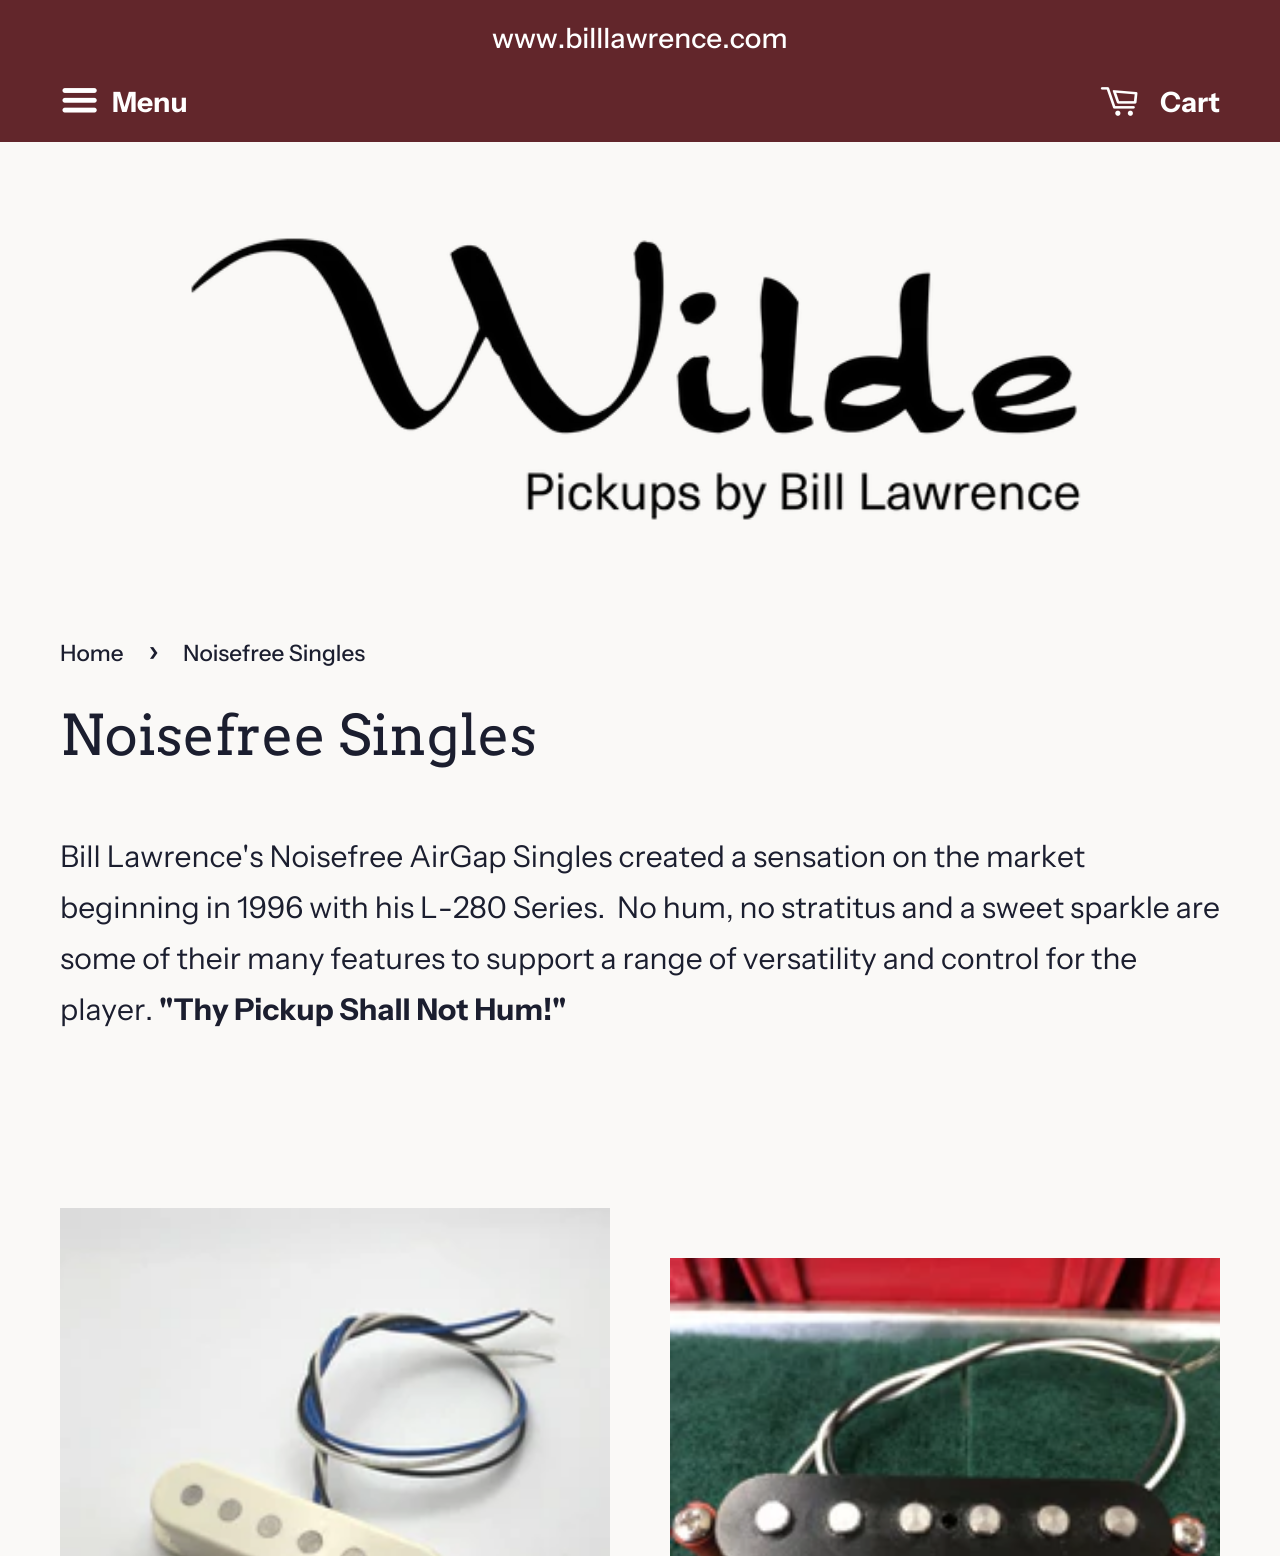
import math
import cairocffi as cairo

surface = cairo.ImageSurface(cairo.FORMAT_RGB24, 1280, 1556)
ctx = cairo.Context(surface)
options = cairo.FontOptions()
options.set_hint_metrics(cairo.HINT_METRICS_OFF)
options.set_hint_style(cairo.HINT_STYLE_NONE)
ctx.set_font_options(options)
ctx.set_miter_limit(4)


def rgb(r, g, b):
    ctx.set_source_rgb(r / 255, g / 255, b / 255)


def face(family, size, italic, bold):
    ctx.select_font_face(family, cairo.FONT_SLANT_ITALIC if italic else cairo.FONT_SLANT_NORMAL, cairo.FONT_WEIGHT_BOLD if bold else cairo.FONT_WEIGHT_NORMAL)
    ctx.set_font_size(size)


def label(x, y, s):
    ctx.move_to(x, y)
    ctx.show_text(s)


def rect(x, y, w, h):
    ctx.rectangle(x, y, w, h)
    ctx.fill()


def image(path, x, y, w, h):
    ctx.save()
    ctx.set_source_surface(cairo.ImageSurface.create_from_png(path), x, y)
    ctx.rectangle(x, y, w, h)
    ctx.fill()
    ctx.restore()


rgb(250, 249, 247)
ctx.paint()
rgb(98, 38, 43)
rect(0, 0, 1280, 142)
face('Instrument Sans Medium', 28, 0, 0)
rgb(255, 255, 255)
label(492, 48, 'www.billlawrence.com')
image('image0.png', 62, 88, 35, 25)
face('Instrument Sans', 28, 0, 1)
label(112, 112, 'Menu')
image('image1.png', 1100, 87, 38, 29)
label(1160, 112, 'Cart')
image('image2.png', 191, 238, 890, 282)
face('Instrument Sans Medium', 22.5, 0, 0)
rgb(27, 30, 47)
label(60, 661, 'Home')
face('Instrument Sans Medium', 32, 0, 0)
label(148, 661, '›')
face('Instrument Sans Medium', 22.5, 0, 0)
label(183, 661, 'Noisefree Singles')
face('Arvo', 56, 0, 0)
label(60, 755, 'Noisefree Singles')
face('Instrument Sans', 30, 0, 0)
label(60, 867, 'Bill Lawrence\'s Noisefree AirGap Singles created a sensation on the market')
label(60, 918, 'beginning in 1996 with his L-280 Series.  No hum, no stratitus and a sweet sparkle are')
label(60, 969, 'some of their many features to support a range of versatility and control for the')
label(60, 1020, 'player.')
face('Instrument Sans', 30, 0, 1)
label(159, 1020, '"Thy Pickup Shall Not Hum!"')
image('image3.png', 60, 1208, 550, 348)
image('image4.png', 670, 1258, 550, 298)
surface.write_to_png('render.png')
